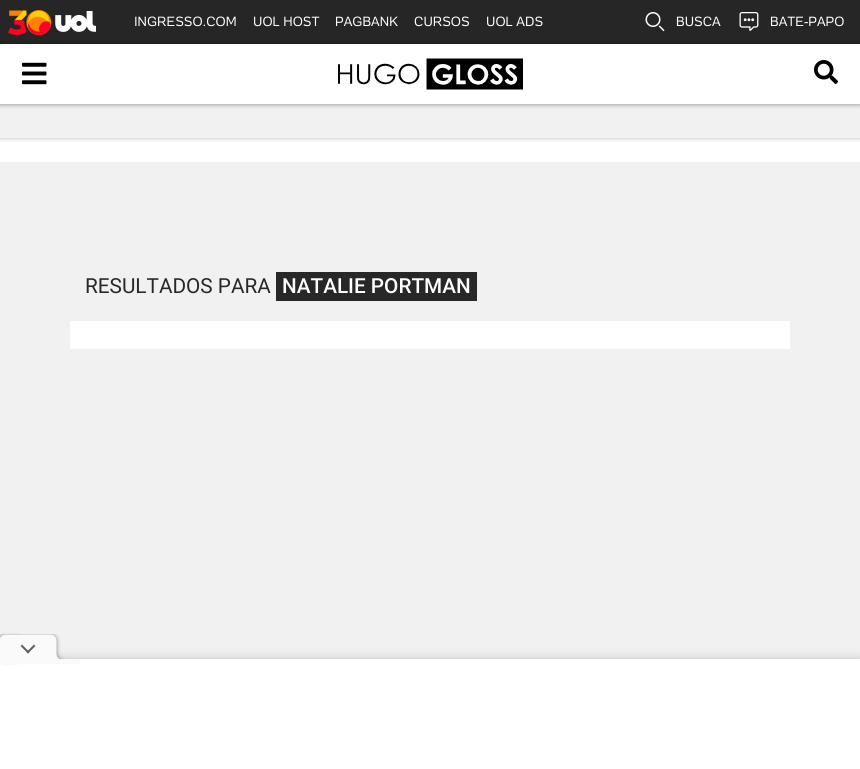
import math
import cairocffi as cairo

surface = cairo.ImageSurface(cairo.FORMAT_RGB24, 860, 769)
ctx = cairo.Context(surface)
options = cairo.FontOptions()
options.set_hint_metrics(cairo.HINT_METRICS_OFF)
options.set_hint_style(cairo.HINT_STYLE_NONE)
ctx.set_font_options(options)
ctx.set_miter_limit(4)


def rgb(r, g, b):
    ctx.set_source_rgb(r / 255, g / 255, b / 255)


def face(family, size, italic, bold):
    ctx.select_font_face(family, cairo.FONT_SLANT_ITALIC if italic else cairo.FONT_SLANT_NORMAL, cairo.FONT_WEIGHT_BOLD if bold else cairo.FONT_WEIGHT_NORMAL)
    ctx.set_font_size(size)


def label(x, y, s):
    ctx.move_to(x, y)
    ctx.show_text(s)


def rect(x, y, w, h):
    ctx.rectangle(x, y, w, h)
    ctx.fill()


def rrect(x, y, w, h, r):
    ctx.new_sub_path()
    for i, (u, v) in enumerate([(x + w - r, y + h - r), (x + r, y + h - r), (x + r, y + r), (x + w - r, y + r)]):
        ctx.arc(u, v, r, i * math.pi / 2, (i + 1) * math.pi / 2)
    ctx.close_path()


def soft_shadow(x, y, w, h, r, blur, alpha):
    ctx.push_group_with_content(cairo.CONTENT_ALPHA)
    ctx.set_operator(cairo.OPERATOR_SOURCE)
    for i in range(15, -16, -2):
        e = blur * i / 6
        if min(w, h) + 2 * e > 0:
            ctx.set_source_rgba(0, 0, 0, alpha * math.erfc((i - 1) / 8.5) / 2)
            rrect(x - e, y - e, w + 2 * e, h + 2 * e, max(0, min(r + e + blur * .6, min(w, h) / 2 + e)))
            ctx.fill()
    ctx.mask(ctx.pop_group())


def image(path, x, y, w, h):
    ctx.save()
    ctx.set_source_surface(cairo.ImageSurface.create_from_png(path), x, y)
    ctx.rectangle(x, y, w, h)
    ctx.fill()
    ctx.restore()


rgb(255, 255, 255)
ctx.paint()
rgb(38, 38, 38)
rect(0, 0, 860, 44)
image('image0.png', 8, 10, 88, 25)
face('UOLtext', 13, 0, 0)
rgb(255, 255, 255)
label(134, 26, 'INGRESSO.COM')
label(253, 26, 'UOL HOST')
label(335, 26, 'PAGBANK')
label(414, 26, 'CURSOS')
label(486, 26, 'UOL ADS')
image('image1.png', 645, 12, 20, 20)
label(676, 26, 'BUSCA')
image('image2.png', 739, 12, 20, 19)
label(770, 26, 'BATE-PAPO')
rgb(0, 0, 0)
soft_shadow(0, 104, 860, 34, 0, 2.5, 0.3)
rgb(241, 241, 241)
rect(0, 104, 860, 34)
rgb(0, 0, 0)
soft_shadow(0, 44, 860, 60, 0, 2.5, 0.3)
soft_shadow(0, 44, 860, 60, 0, 3, 0.2)
rgb(255, 255, 255)
rect(0, 44, 860, 60)
image('image3.png', 22, 62, 25, 23)
image('image4.png', 338, 58, 185, 32)
image('image5.png', 814, 60, 24, 24)
rgb(241, 241, 241)
rect(0, 162, 860, 497)
face('Roboto', 20.75, 0, 0)
rgb(40, 40, 40)
label(85, 293, 'RESULTADOS PARA')
rect(276, 272, 201, 29)
face('Roboto Medium', 20.75, 0, 0)
rgb(255, 255, 255)
label(282, 293, 'NATALIE PORTMAN')
rect(70, 321, 720, 28)
rgb(0, 0, 0)
soft_shadow(0, 659, 860, 110, 0, 5, 0.2)
rgb(255, 255, 255)
rect(0, 659, 860, 110)
rgb(0, 0, 0)
soft_shadow(0, 636, 20, 26, 4, 2, 0.27)
image('image6.png', 0, 634, 80, 30)
surface.write_to_png('render.png')
